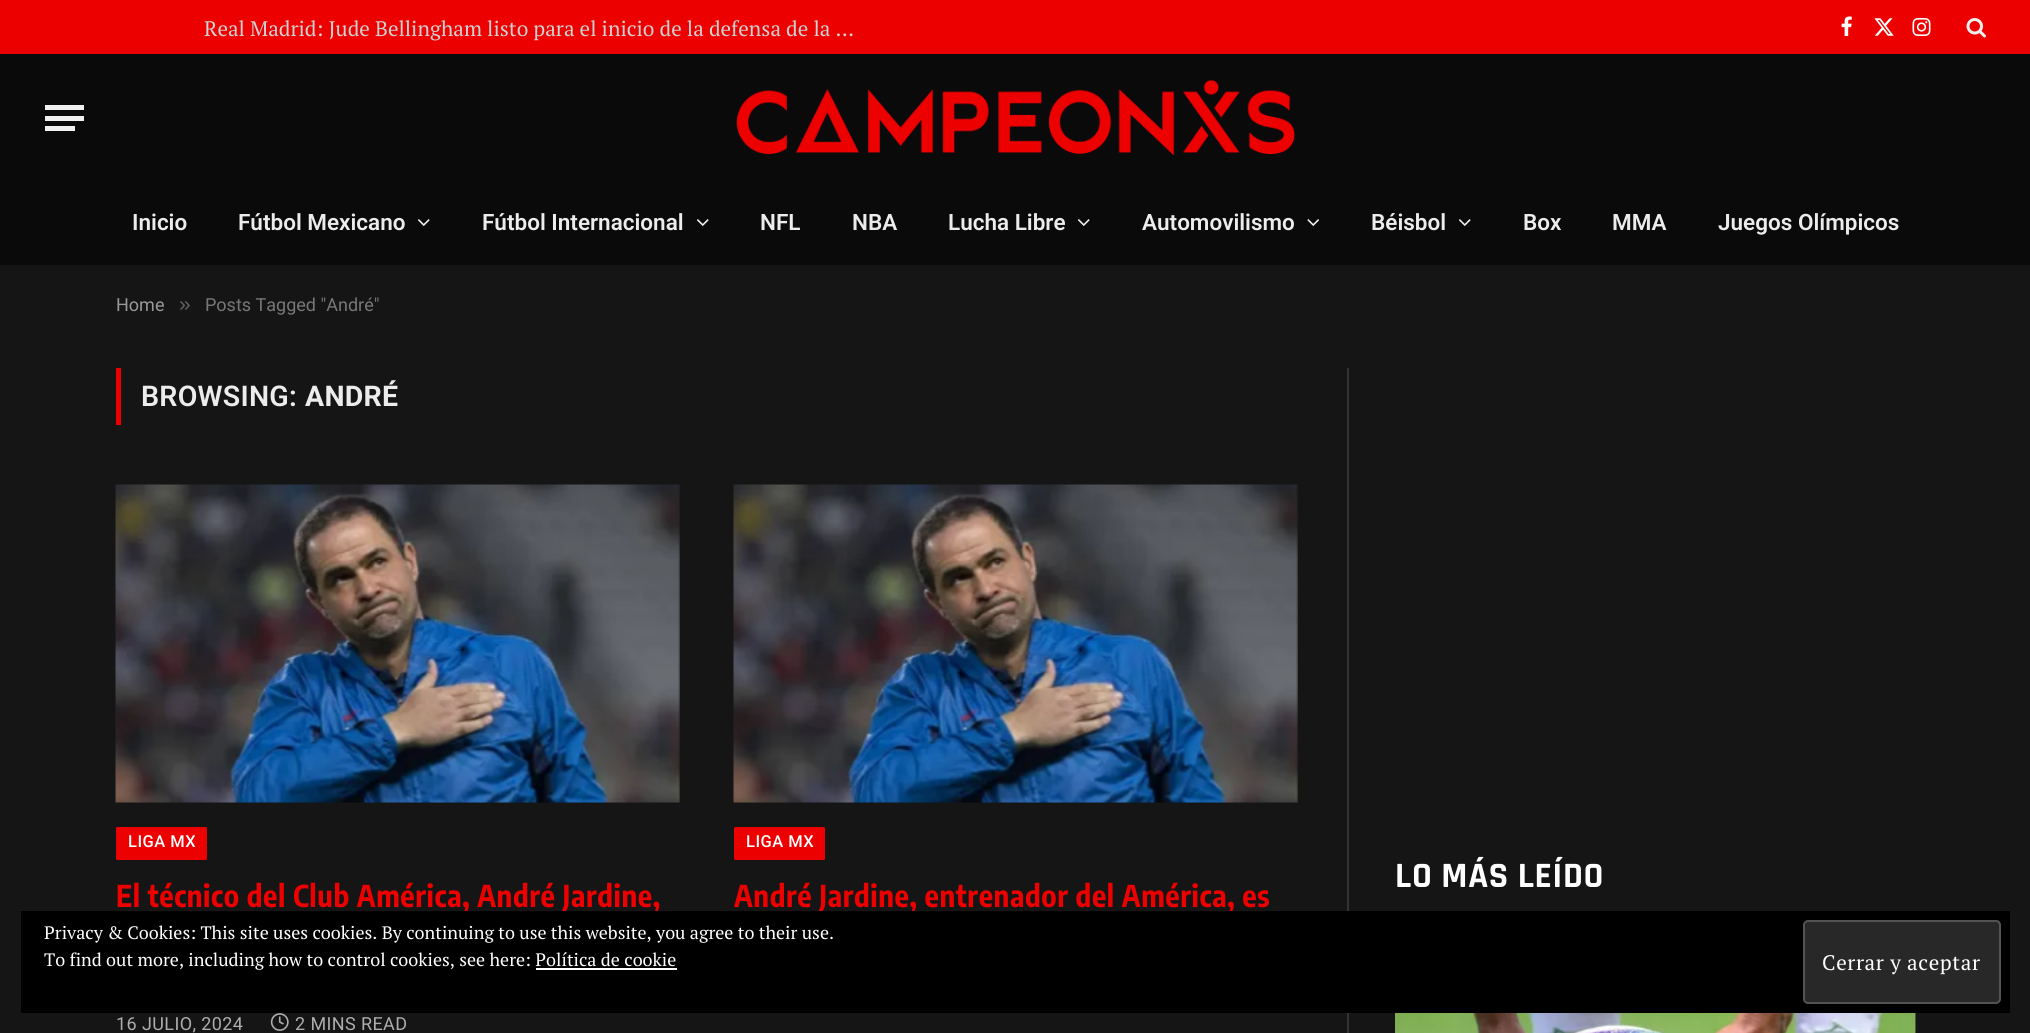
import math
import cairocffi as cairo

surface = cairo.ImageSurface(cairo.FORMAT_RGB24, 2030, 1033)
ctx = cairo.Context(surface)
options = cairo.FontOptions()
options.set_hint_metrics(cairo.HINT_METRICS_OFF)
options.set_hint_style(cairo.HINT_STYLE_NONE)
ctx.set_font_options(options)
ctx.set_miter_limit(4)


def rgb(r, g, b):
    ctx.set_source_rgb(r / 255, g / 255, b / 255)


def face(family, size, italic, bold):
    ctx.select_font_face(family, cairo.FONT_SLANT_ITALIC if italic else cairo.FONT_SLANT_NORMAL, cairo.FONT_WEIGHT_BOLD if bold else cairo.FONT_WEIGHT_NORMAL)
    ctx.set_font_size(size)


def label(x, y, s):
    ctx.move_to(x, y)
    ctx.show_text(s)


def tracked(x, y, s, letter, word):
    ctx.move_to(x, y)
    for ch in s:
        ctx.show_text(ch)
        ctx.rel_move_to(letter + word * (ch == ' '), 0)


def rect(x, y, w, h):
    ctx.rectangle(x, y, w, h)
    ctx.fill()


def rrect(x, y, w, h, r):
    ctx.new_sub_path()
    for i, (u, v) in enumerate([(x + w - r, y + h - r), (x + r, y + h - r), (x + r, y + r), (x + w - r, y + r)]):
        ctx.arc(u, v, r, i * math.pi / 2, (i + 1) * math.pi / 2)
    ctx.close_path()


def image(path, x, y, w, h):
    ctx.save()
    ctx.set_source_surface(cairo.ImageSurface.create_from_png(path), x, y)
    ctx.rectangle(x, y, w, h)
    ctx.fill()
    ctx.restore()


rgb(21, 21, 22)
ctx.paint()
rgb(237, 0, 0)
rect(0, 0, 2030, 54)
face('PT Serif', 21, 0, 0)
rgb(209, 209, 209)
label(204, 36, 'Real Madrid: Jude Bellingham listo para el inicio de la defensa de la …')
image('image0.png', 1841, 16, 11, 20)
image('image1.png', 1874, 18, 20, 18)
image('image2.png', 1912, 18, 19, 18)
image('image3.png', 1966, 18, 20, 20)
rgb(10, 10, 10)
rect(0, 54, 2030, 211)
rgb(240, 240, 240)
rect(45, 126, 30, 5)
rect(45, 105, 39, 5)
rect(45, 116, 39, 5)
image('image4.png', 736, 79, 559, 77)
face('Roboto SemiBold', 22.5, 0, 0)
rgb(236, 236, 236)
label(132, 230, 'Inicio')
label(238, 230, 'Fútbol Mexicano')
image('image5.png', 417, 219, 13, 7)
label(482, 230, 'Fútbol Internacional')
image('image5.png', 696, 219, 13, 7)
label(760, 230, 'NFL')
label(852, 230, 'NBA')
label(948, 230, 'Lucha Libre')
image('image5.png', 1077, 219, 13, 7)
label(1142, 230, 'Automovilismo')
image('image6.png', 1307, 219, 13, 7)
label(1371, 230, 'Béisbol')
image('image5.png', 1458, 219, 13, 7)
label(1523, 230, 'Box')
label(1612, 230, 'MMA')
label(1718, 230, 'Juegos Olímpicos')
face('Roboto', 18, 0, 0)
rgb(153, 153, 153)
label(116, 311, 'Home')
face('Liberation Sans', 21, 0, 0)
rgb(99, 99, 100)
label(179, 311, '»')
face('Roboto', 18, 0, 0)
rgb(119, 119, 119)
label(205, 311, 'Posts Tagged "André"')
rgb(237, 0, 0)
rect(116, 368, 5, 57)
face('Roboto SemiBold', 28.5, 0, 0)
rgb(236, 236, 236)
tracked(141, 406, 'BROWSING:', 0.25, 0)
face('Roboto', 28.5, 0, 1)
tracked(305, 406, 'ANDRÉ', 0.25, 0)
image('image7.png', 115, 484, 565, 319)
rgb(237, 0, 0)
rrect(116, 827, 91, 33, 1.5)
ctx.fill()
face('Roboto Medium', 16.5, 0, 0)
rgb(255, 255, 255)
tracked(128, 847, 'LIGA MX', 0.5, 0)
face('Encode Sans Condensed', 30, 0, 1)
rgb(237, 0, 0)
tracked(116, 907, 'El técnico del Club América, André Jardine,', 0.6, 0)
face('Roboto', 18, 0, 0)
rgb(173, 173, 173)
tracked(116, 1030, '16 JULIO, 2024', 0.4, 0)
image('image8.png', 270, 1013, 19, 18)
tracked(295, 1030, '2 MINS READ', 0.4, 0)
image('image7.png', 733, 484, 565, 319)
rgb(237, 0, 0)
rrect(734, 827, 91, 33, 1.5)
ctx.fill()
face('Roboto Medium', 16.5, 0, 0)
rgb(255, 255, 255)
tracked(746, 847, 'LIGA MX', 0.5, 0)
face('Encode Sans Condensed', 30, 0, 1)
rgb(237, 0, 0)
tracked(734, 907, 'André Jardine, entrenador del América, es', 0.6, 0)
rgb(51, 51, 52)
rect(1347, 368, 2, 665)
face('Rajdhani', 36, 0, 1)
rgb(255, 255, 255)
tracked(1395, 887, 'LO MÁS LEÍDO', 0.75, 0)
image('image9.png', 1395, 1013, 521, 20)
rgb(0, 0, 0)
rect(21, 911, 1989, 102)
face('PT Serif', 18, 0, 0)
rgb(255, 255, 255)
label(44, 939, 'Privacy & Cookies: This site uses cookies. By continuing to use this website, you agree to their use.')
label(44, 966, 'To find out more, including how to control cookies, see here: Política de cookie')
rgb(40, 40, 40)
rrect(1804, 921, 196, 82, 4)
ctx.fill_preserve()
rgb(83, 83, 83)
ctx.stroke()
face('PT Serif', 21, 0, 0)
rgb(255, 255, 255)
tracked(1822, 970, 'Cerrar y aceptar', 0.6, 0)
rect(536, 968, 141, 2)
surface.write_to_png('render.png')
